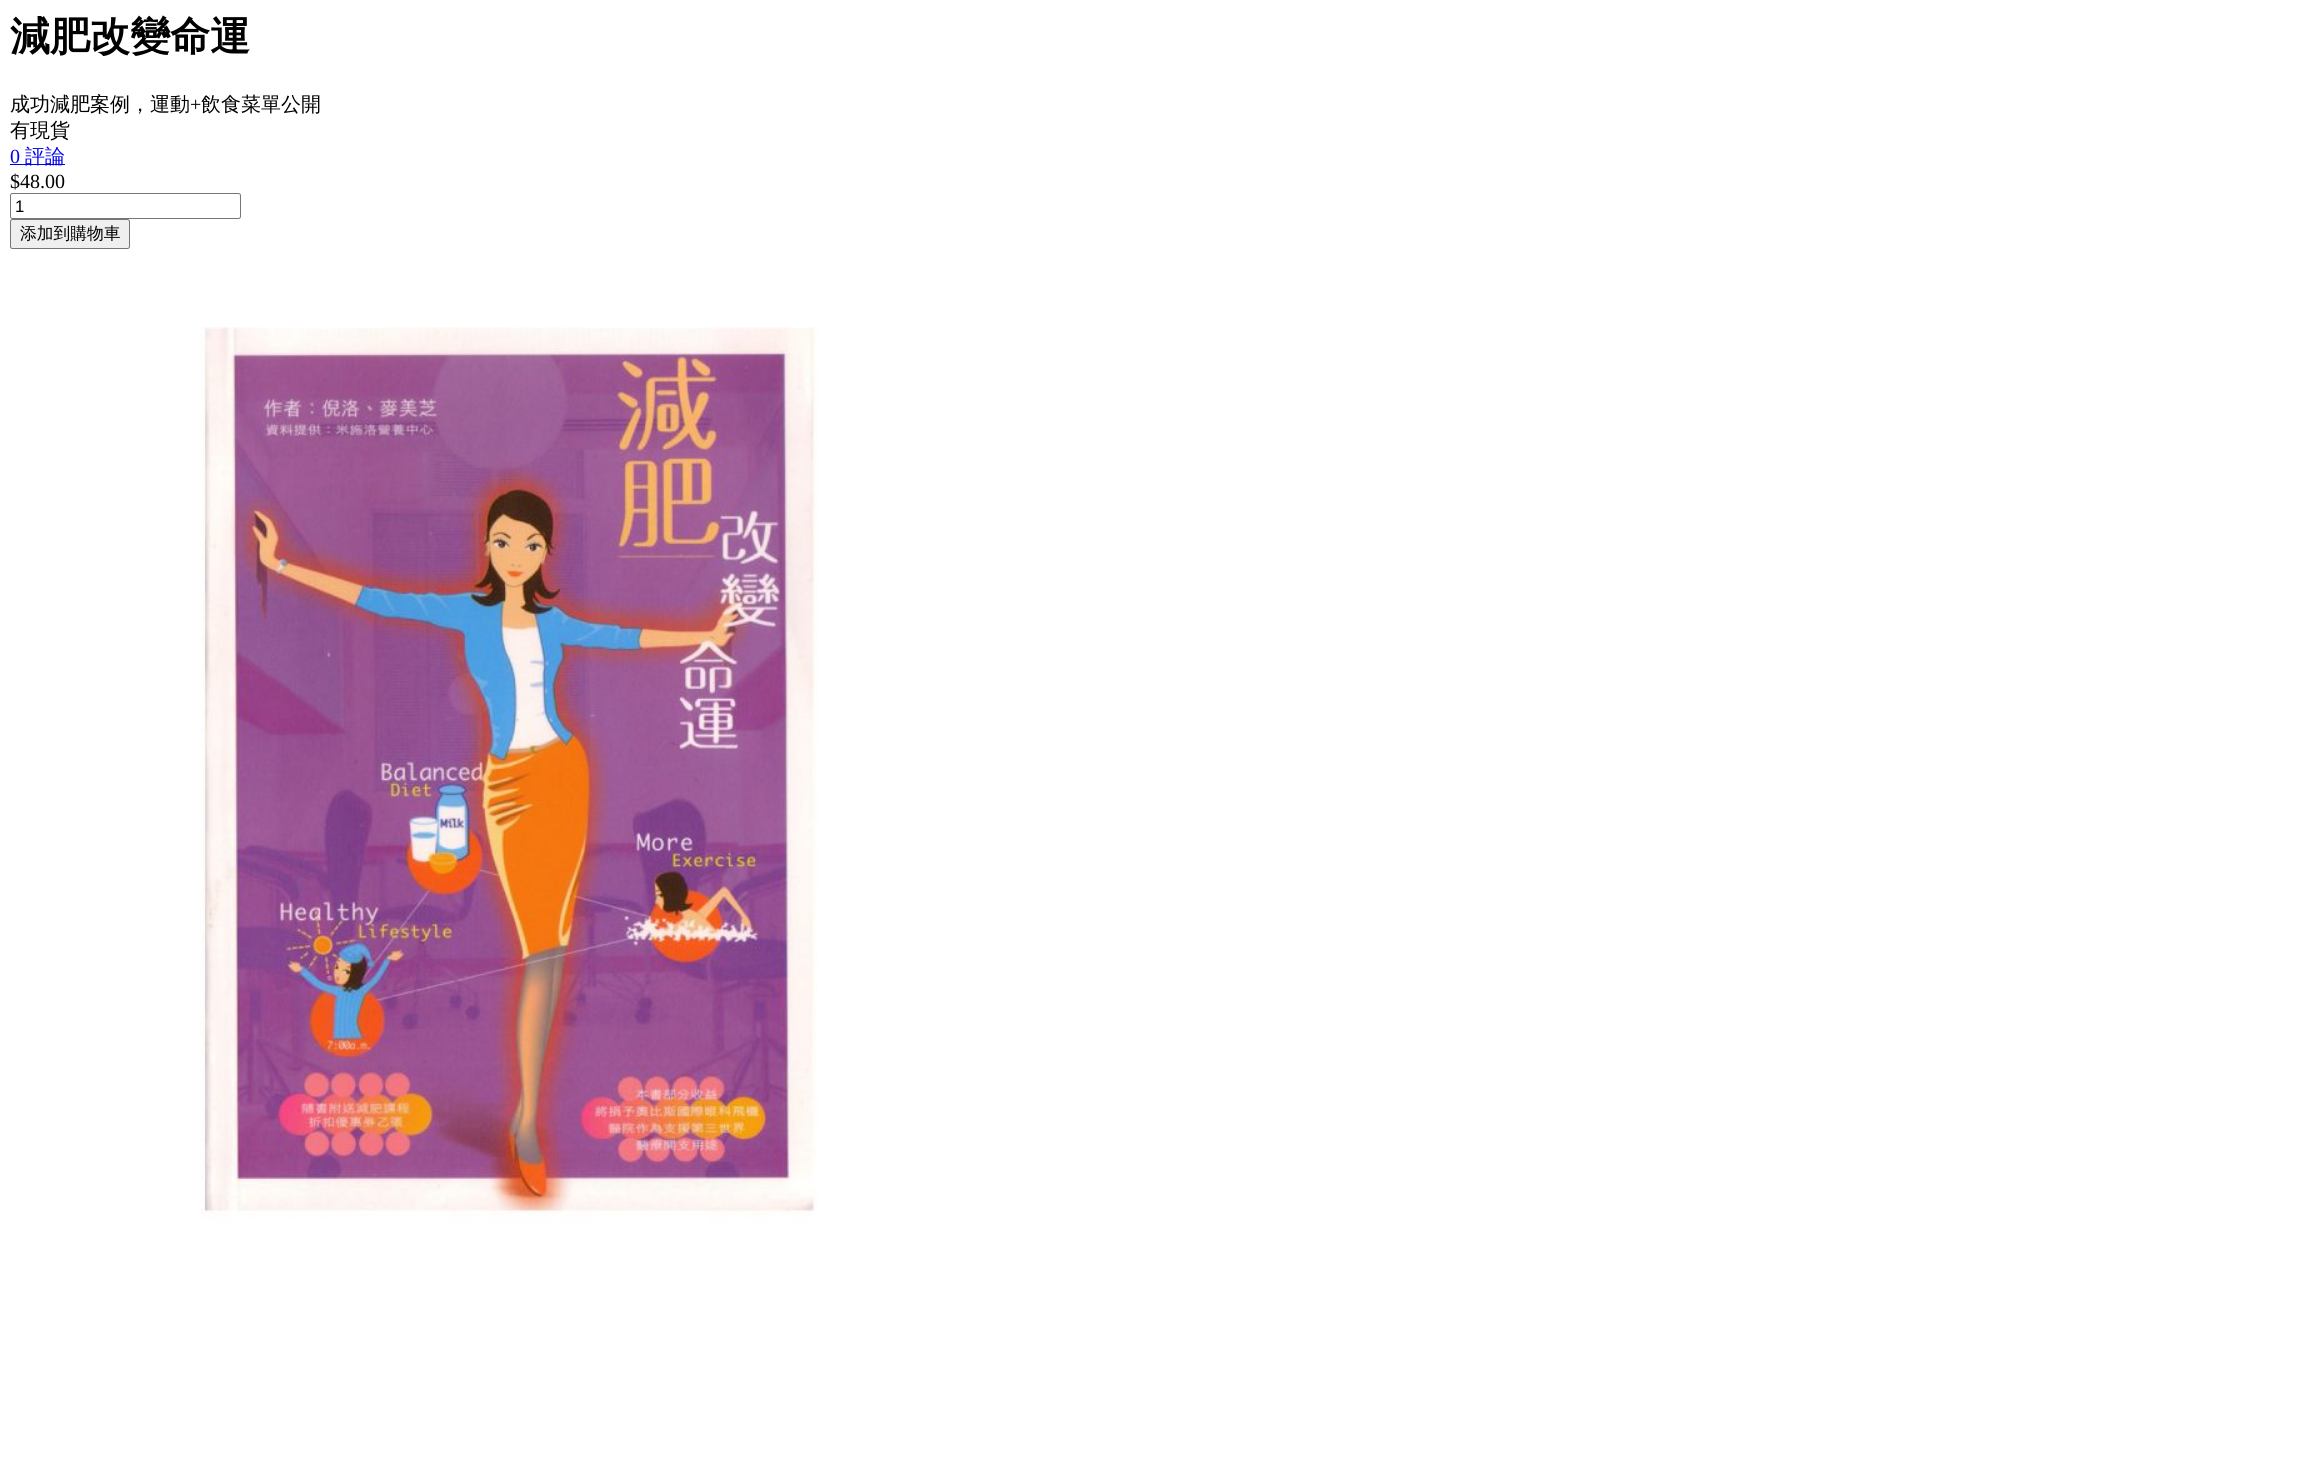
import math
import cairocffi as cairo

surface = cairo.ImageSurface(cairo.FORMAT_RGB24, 2312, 1479)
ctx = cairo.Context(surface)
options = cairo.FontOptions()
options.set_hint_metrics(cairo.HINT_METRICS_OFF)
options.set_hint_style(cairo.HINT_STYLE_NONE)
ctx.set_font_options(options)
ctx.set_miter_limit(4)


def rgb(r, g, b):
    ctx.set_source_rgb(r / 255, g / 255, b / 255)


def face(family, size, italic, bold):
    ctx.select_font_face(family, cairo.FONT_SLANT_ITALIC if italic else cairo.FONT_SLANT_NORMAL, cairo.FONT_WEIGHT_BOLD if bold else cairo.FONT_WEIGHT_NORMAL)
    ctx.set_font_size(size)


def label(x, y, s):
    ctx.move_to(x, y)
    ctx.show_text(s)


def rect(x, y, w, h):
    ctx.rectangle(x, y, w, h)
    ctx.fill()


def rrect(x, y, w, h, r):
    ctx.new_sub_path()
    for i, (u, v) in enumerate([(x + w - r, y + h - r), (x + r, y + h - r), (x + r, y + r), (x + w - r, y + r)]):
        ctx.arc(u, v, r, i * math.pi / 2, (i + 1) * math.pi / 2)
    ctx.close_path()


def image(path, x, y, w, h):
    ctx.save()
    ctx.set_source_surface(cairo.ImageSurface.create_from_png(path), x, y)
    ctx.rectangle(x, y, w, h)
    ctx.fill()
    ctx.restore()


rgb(255, 255, 255)
ctx.paint()
face('WenQuanYi Zen Hei', 40, 0, 1)
rgb(0, 0, 0)
label(10, 50, '減肥改變命運')
face('WenQuanYi Zen Hei Medium', 20, 0, 0)
label(10, 111, '成功減肥案例，運動')
face('Liberation Serif', 20, 0, 0)
label(190, 111, '+')
face('WenQuanYi Zen Hei Medium', 20, 0, 0)
label(201, 111, '飲食菜單公開')
label(10, 137, '有現貨')
face('Liberation Serif', 20, 0, 0)
rgb(0, 0, 238)
label(10, 163, '0')
rect(10, 164, 55, 1)
face('WenQuanYi Zen Hei Medium', 20, 0, 0)
label(25, 163, '評論')
face('Liberation Serif', 20, 0, 0)
rgb(0, 0, 0)
label(10, 188, '$48.00')
rrect(10.5, 193.5, 230, 25, 2)
rgb(118, 118, 118)
ctx.set_line_width(1)
ctx.stroke()
face('Liberation Sans', 16.75, 0, 0)
rgb(0, 0, 0)
label(15, 212, '1')
rgb(239, 239, 239)
rrect(10.5, 219.5, 119, 29, 2)
ctx.fill_preserve()
rgb(118, 118, 118)
ctx.stroke()
face('WenQuanYi Zen Hei Medium', 16.75, 0, 0)
rgb(0, 0, 0)
label(20, 239, '添加到購物車')
image('image0.png', 200, 327, 618, 897)
surface.write_to_png('render.png')
